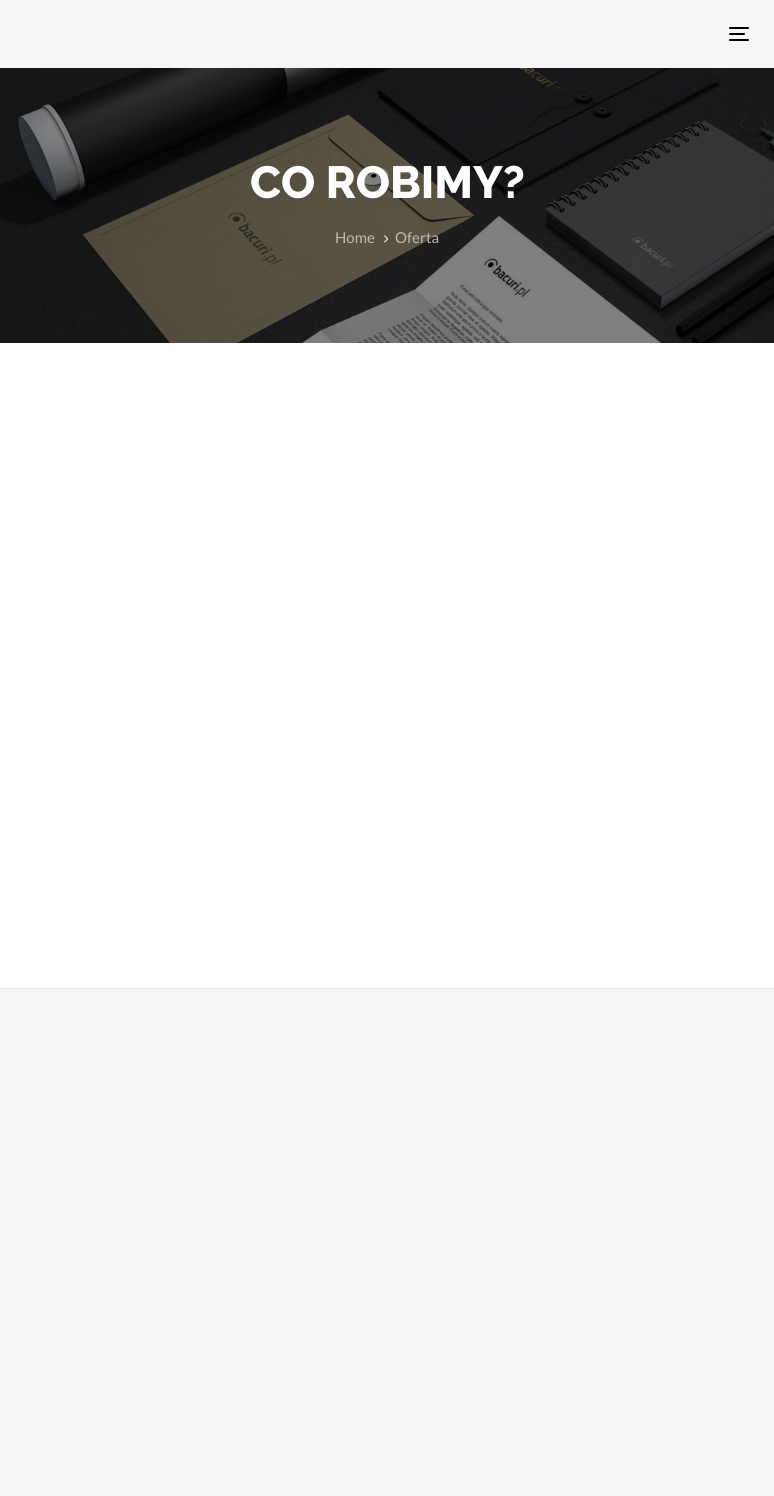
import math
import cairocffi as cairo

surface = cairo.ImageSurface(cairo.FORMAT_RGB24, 774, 1496)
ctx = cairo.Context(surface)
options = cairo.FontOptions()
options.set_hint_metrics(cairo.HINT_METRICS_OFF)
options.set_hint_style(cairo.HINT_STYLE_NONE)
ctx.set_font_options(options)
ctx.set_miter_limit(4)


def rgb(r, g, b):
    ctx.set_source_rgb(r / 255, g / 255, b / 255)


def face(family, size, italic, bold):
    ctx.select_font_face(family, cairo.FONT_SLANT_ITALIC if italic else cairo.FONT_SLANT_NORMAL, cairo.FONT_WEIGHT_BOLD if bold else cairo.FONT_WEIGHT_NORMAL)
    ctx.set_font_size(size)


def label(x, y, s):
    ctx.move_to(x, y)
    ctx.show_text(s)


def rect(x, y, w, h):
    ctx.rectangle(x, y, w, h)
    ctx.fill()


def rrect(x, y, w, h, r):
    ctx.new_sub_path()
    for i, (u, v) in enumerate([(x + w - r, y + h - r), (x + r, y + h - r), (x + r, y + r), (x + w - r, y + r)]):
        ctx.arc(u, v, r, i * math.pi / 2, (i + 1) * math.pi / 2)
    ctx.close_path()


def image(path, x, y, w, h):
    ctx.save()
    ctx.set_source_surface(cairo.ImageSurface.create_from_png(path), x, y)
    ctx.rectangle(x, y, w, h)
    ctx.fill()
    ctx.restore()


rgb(255, 255, 255)
ctx.paint()
image('image0.png', 0, 68, 774, 275)
rgb(246, 246, 246)
rect(0, 0, 774, 68)
rgb(0, 0, 0)
rrect(729, 27, 20, 2, 1)
ctx.fill()
rrect(729, 33, 16, 2, 1)
ctx.fill()
rrect(729, 39, 20, 2, 1)
ctx.fill()
face('Raleway ExtraBold', 45, 0, 0)
rgb(255, 255, 255)
label(250, 198, 'CO ROBIMY?')
face('Lato', 15, 0, 0)
rgb(188, 186, 179)
label(335, 243, 'Home')
image('image1.png', 384, 235, 5, 8)
label(395, 243, 'Oferta')
rgb(246, 246, 246)
rect(0, 989, 774, 507)
rgb(229, 229, 229)
rect(0, 988, 774, 1)
surface.write_to_png('render.png')
